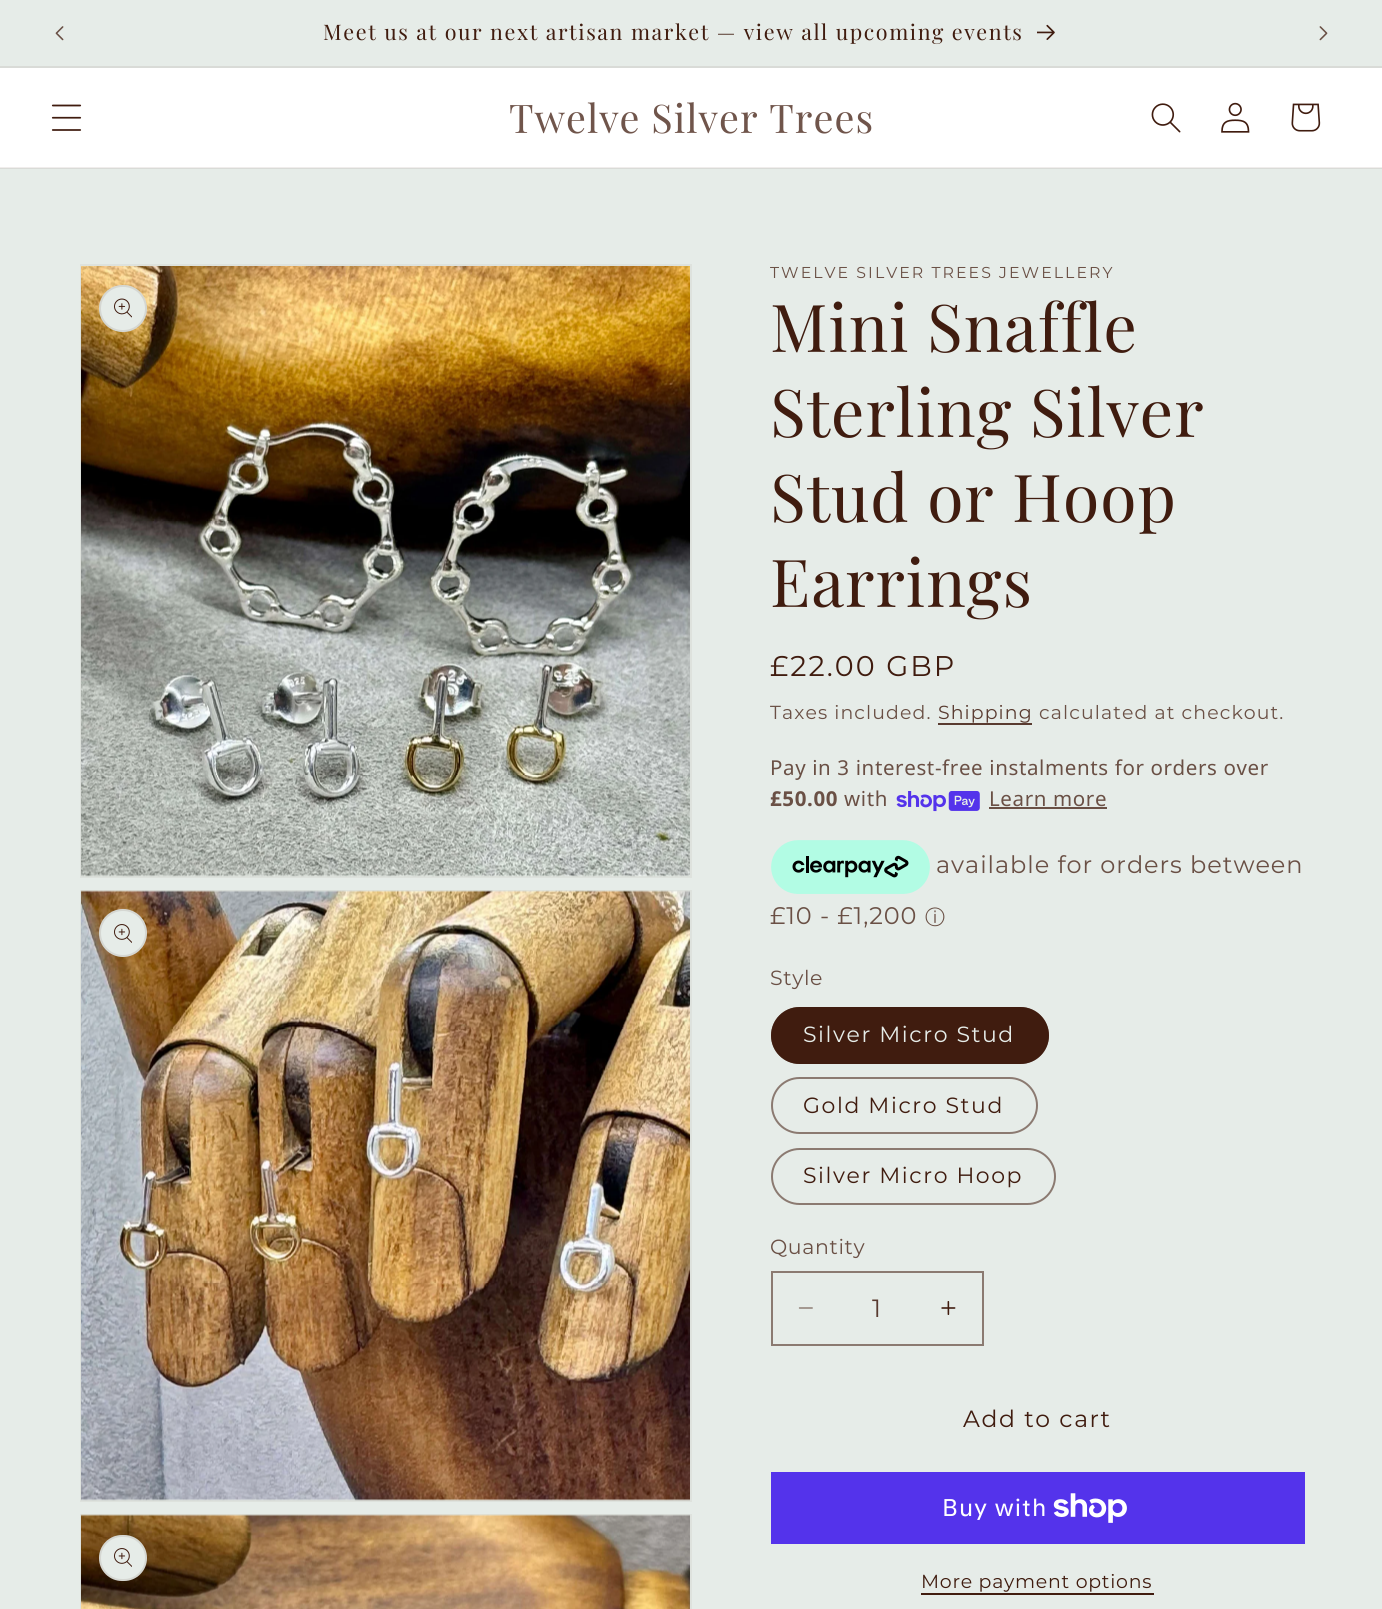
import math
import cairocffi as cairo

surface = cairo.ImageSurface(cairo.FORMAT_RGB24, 1382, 1609)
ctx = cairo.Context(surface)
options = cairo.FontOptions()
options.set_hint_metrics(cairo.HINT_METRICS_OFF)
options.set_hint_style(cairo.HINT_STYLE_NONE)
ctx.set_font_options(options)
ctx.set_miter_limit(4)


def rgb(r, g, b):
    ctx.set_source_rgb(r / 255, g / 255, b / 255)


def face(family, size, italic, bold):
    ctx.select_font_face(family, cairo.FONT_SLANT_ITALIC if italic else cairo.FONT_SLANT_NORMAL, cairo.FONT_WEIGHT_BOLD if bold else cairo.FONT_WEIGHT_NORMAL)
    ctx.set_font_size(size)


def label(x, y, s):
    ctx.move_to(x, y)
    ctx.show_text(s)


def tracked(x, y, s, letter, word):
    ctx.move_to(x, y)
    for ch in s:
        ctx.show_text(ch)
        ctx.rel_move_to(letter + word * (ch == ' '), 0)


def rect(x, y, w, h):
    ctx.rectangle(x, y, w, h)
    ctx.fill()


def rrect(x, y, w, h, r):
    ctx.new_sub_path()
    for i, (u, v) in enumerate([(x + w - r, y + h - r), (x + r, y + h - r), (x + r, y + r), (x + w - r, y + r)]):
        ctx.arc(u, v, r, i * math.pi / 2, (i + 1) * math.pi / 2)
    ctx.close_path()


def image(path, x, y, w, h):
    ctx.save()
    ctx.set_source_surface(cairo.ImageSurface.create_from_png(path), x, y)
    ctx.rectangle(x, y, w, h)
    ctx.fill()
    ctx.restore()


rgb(230, 236, 232)
ctx.paint()
rgb(217, 219, 215)
rect(0, 168, 1382, 1)
rect(0, 66, 1382, 2)
image('image0.png', 55, 26, 9, 15)
face('Playfair Display', 21.45, 0, 0)
rgb(64, 28, 15)
tracked(323, 40, 'Meet us at our next artisan market — view all upcoming events', 1.58, 0)
image('image1.png', 1037, 24, 18, 16)
image('image2.png', 1319, 26, 9, 15)
rgb(255, 255, 255)
rect(0, 68, 1382, 99)
rgb(240, 237, 236)
rect(0, 167, 1382, 1)
image('image3.png', 51, 104, 31, 27)
face('Playfair Display', 39.5, 0, 0)
rgb(112, 85, 75)
tracked(509, 133, 'Twelve Silver Trees', 1, 0)
image('image4.png', 1151, 103, 30, 30)
image('image5.png', 1221, 102, 29, 31)
image('image6.png', 1291, 103, 30, 29)
ctx.rectangle(81, 265, 610, 612)
rgb(222, 226, 221)
ctx.stroke()
image('image7.png', 81, 266, 609, 611)
rgb(230, 236, 232)
rrect(99, 285, 48, 47, 23.5)
ctx.fill()
rrect(100, 286, 46, 45, 22.5)
ctx.set_source_rgba(0.251, 0.11, 0.059, 0.1)
ctx.stroke()
image('image8.png', 114, 298, 18, 20)
ctx.rectangle(81, 891, 610, 610)
rgb(222, 226, 221)
ctx.stroke()
image('image9.png', 81, 890, 609, 611)
rgb(230, 236, 232)
ctx.arc(123, 933, 24, 0, 2 * math.pi)
ctx.fill()
ctx.arc(123, 933, 23, 0, 2 * math.pi)
ctx.set_source_rgba(0.251, 0.11, 0.059, 0.1)
ctx.stroke()
image('image10.png', 114, 924, 18, 19)
ctx.rectangle(81, 1515, 610, 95)
rgb(222, 226, 221)
ctx.stroke()
image('image11.png', 81, 1514, 609, 95)
rgb(230, 236, 232)
rrect(99, 1535, 48, 46, 23)
ctx.fill()
rrect(100, 1536, 46, 44, 22)
ctx.set_source_rgba(0.251, 0.11, 0.059, 0.1)
ctx.stroke()
image('image10.png', 114, 1548, 18, 19)
face('Montserrat', 15.75, 0, 0)
rgb(106, 80, 69)
tracked(770, 278, 'TWELVE SILVER TREES JEWELLERY', 2.05, 0)
face('Playfair Display', 66, 0, 0)
rgb(64, 28, 15)
tracked(770, 352, 'Mini Snaffle', 1, 0)
tracked(770, 437, 'Sterling Silver', 1, 0)
tracked(770, 522, 'Stud or Hoop', 1, 0)
tracked(770, 607, 'Earrings', 1, 0)
face('Montserrat', 28.5, 0, 0)
tracked(770, 676, '£22.00 GBP', 2.05, 0)
face('Montserrat', 18.9, 0, 0)
rgb(106, 80, 69)
tracked(770, 719, 'Taxes included.', 1.1, 0)
rgb(89, 59, 48)
tracked(938, 719, 'Shipping', 1.1, 0)
rect(938, 723, 94, 2)
rgb(106, 80, 69)
tracked(1039, 719, 'calculated at checkout.', 1.1, 0)
face('Noto Sans', 20.5, 0, 0)
tracked(770, 775, 'Pay in 3 interest-free instalments for orders over', 0.63, 0)
face('Noto Sans', 20.5, 0, 1)
tracked(770, 806, '£50.00', 0.63, 0)
face('Noto Sans', 20.5, 0, 0)
tracked(844, 806, 'with', 0.63, 0)
image('image12.png', 896, 791, 84, 21)
tracked(989, 806, 'Learn more', 0.63, 0)
rect(989, 807, 118, 2)
image('image13.png', 771, 840, 159, 54)
face('Montserrat', 24, 0, 0)
tracked(936, 873, 'available for orders between', 0.95, 0)
tracked(770, 924, '£10 - £1,200', 0.95, 0)
face('WenQuanYi Zen Hei Medium', 20, 0, 0)
label(925, 924, 'ⓘ')
face('Montserrat', 20.5, 0, 0)
tracked(770, 985, 'Style', 0.63, 0)
rgb(64, 28, 15)
rrect(771, 1007, 278, 57, 28.5)
ctx.fill()
rrect(772, 1008, 276, 55, 27.5)
ctx.set_source_rgba(0.251, 0.11, 0.059, 0.55)
ctx.stroke()
face('Montserrat', 22, 0, 0)
rgb(230, 236, 232)
tracked(803, 1042, 'Silver Micro Stud', 1.58, 0)
rrect(772, 1078, 265, 55, 27.5)
rgb(139, 122, 113)
ctx.stroke()
rgb(64, 28, 15)
tracked(803, 1113, 'Gold Micro Stud', 1.58, 0)
rrect(772, 1149, 283, 55, 27.5)
rgb(139, 122, 113)
ctx.stroke()
rgb(64, 28, 15)
tracked(803, 1183, 'Silver Micro Hoop', 1.58, 0)
face('Montserrat', 20.5, 0, 0)
rgb(106, 80, 69)
tracked(770, 1254, 'Quantity', 0.63, 0)
image('image14.png', 798, 1307, 15, 2)
image('image15.png', 941, 1301, 15, 14)
ctx.rectangle(772, 1272, 211, 73)
rgb(139, 122, 113)
ctx.stroke()
face('Montserrat', 25, 0, 0)
rgb(89, 59, 48)
label(872, 1317, '1')
face('Montserrat', 23.5, 0, 0)
rgb(64, 28, 15)
tracked(963, 1427, 'Add to cart', 1.58, 0)
rgb(84, 51, 235)
rect(771, 1472, 534, 72)
face('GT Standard', 24, 0, 0)
rgb(255, 255, 255)
tracked(942, 1516, 'Buy with', 0.95, 0)
image('image16.png', 1053, 1493, 74, 30)
face('Montserrat', 18.9, 0, 0)
rgb(64, 28, 15)
tracked(921, 1588, 'More payment options', 0.75, 0)
rect(921, 1593, 233, 2)
surface.write_to_png('render.png')
